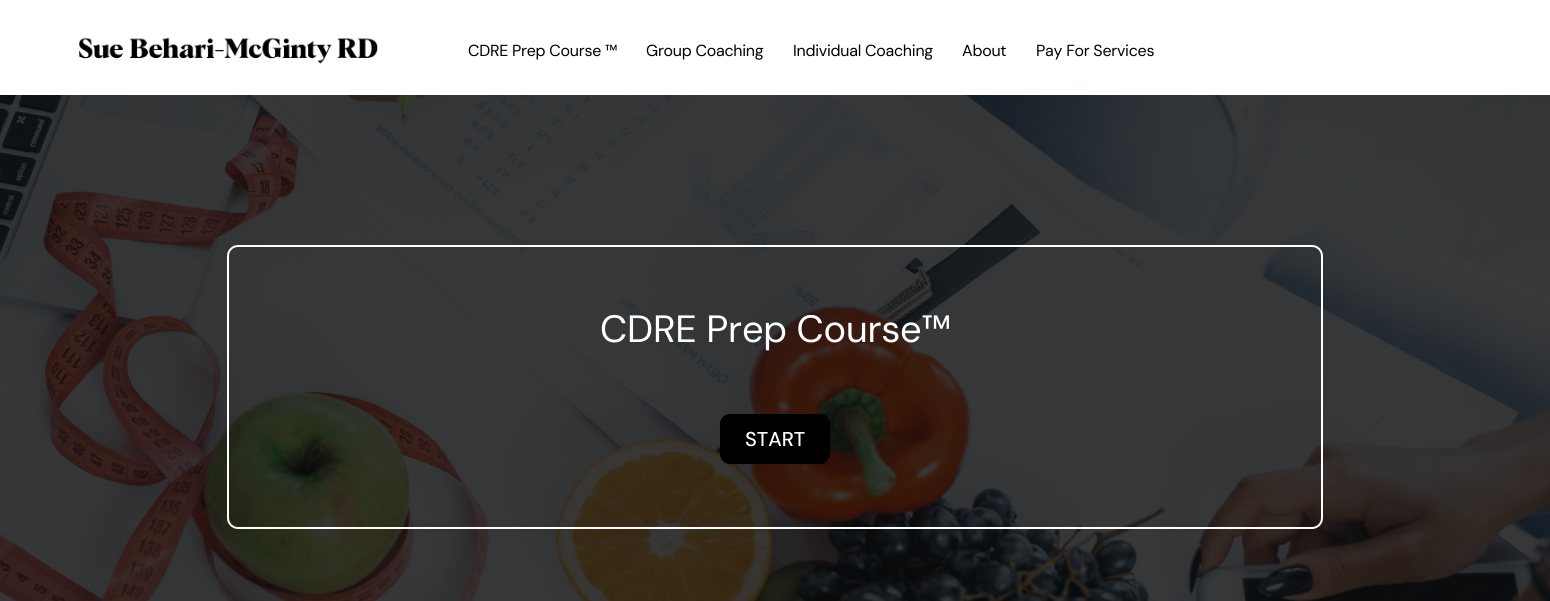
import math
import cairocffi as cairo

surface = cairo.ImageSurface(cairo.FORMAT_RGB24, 1550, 601)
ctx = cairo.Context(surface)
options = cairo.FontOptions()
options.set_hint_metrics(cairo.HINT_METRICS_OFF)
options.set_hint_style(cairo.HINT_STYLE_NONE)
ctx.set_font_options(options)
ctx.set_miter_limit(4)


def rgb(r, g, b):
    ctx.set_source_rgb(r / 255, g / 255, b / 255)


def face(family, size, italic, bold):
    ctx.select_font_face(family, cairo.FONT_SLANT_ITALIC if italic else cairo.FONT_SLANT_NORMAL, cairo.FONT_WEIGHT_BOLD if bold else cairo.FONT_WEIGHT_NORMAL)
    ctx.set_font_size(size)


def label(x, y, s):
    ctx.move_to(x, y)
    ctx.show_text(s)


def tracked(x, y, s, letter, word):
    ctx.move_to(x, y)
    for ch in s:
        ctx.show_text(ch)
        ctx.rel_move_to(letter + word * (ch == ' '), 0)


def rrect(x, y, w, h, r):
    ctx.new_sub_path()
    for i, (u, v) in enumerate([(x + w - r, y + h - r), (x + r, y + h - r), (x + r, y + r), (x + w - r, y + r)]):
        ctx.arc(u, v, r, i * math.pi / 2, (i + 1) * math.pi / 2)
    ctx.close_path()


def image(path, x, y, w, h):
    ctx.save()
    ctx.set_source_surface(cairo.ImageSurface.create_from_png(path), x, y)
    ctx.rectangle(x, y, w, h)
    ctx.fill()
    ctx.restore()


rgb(255, 255, 255)
ctx.paint()
image('image0.png', 79, 37, 299, 27)
face('DM Sans', 16, 0, 0)
rgb(0, 0, 0)
tracked(468, 56, 'CDRE Prep Course ™', -0.25, 0)
tracked(646, 56, 'Group Coaching', -0.25, 0)
tracked(793, 56, 'Individual Coaching', -0.25, 0)
tracked(962, 56, 'About', -0.25, 0)
tracked(1036, 56, 'Pay For Services', -0.25, 0)
image('image1.png', 0, 95, 1550, 506)
rrect(228, 246, 1094, 282, 10)
rgb(255, 255, 255)
ctx.stroke()
face('DM Sans', 38, 0, 0)
tracked(600, 342, 'CDRE Prep Course™', -0.25, 0)
rgb(0, 0, 0)
rrect(720, 414, 110, 50, 10)
ctx.fill()
face('DM Sans Medium', 20, 0, 0)
rgb(255, 255, 255)
label(745, 446, 'START')
surface.write_to_png('render.png')
